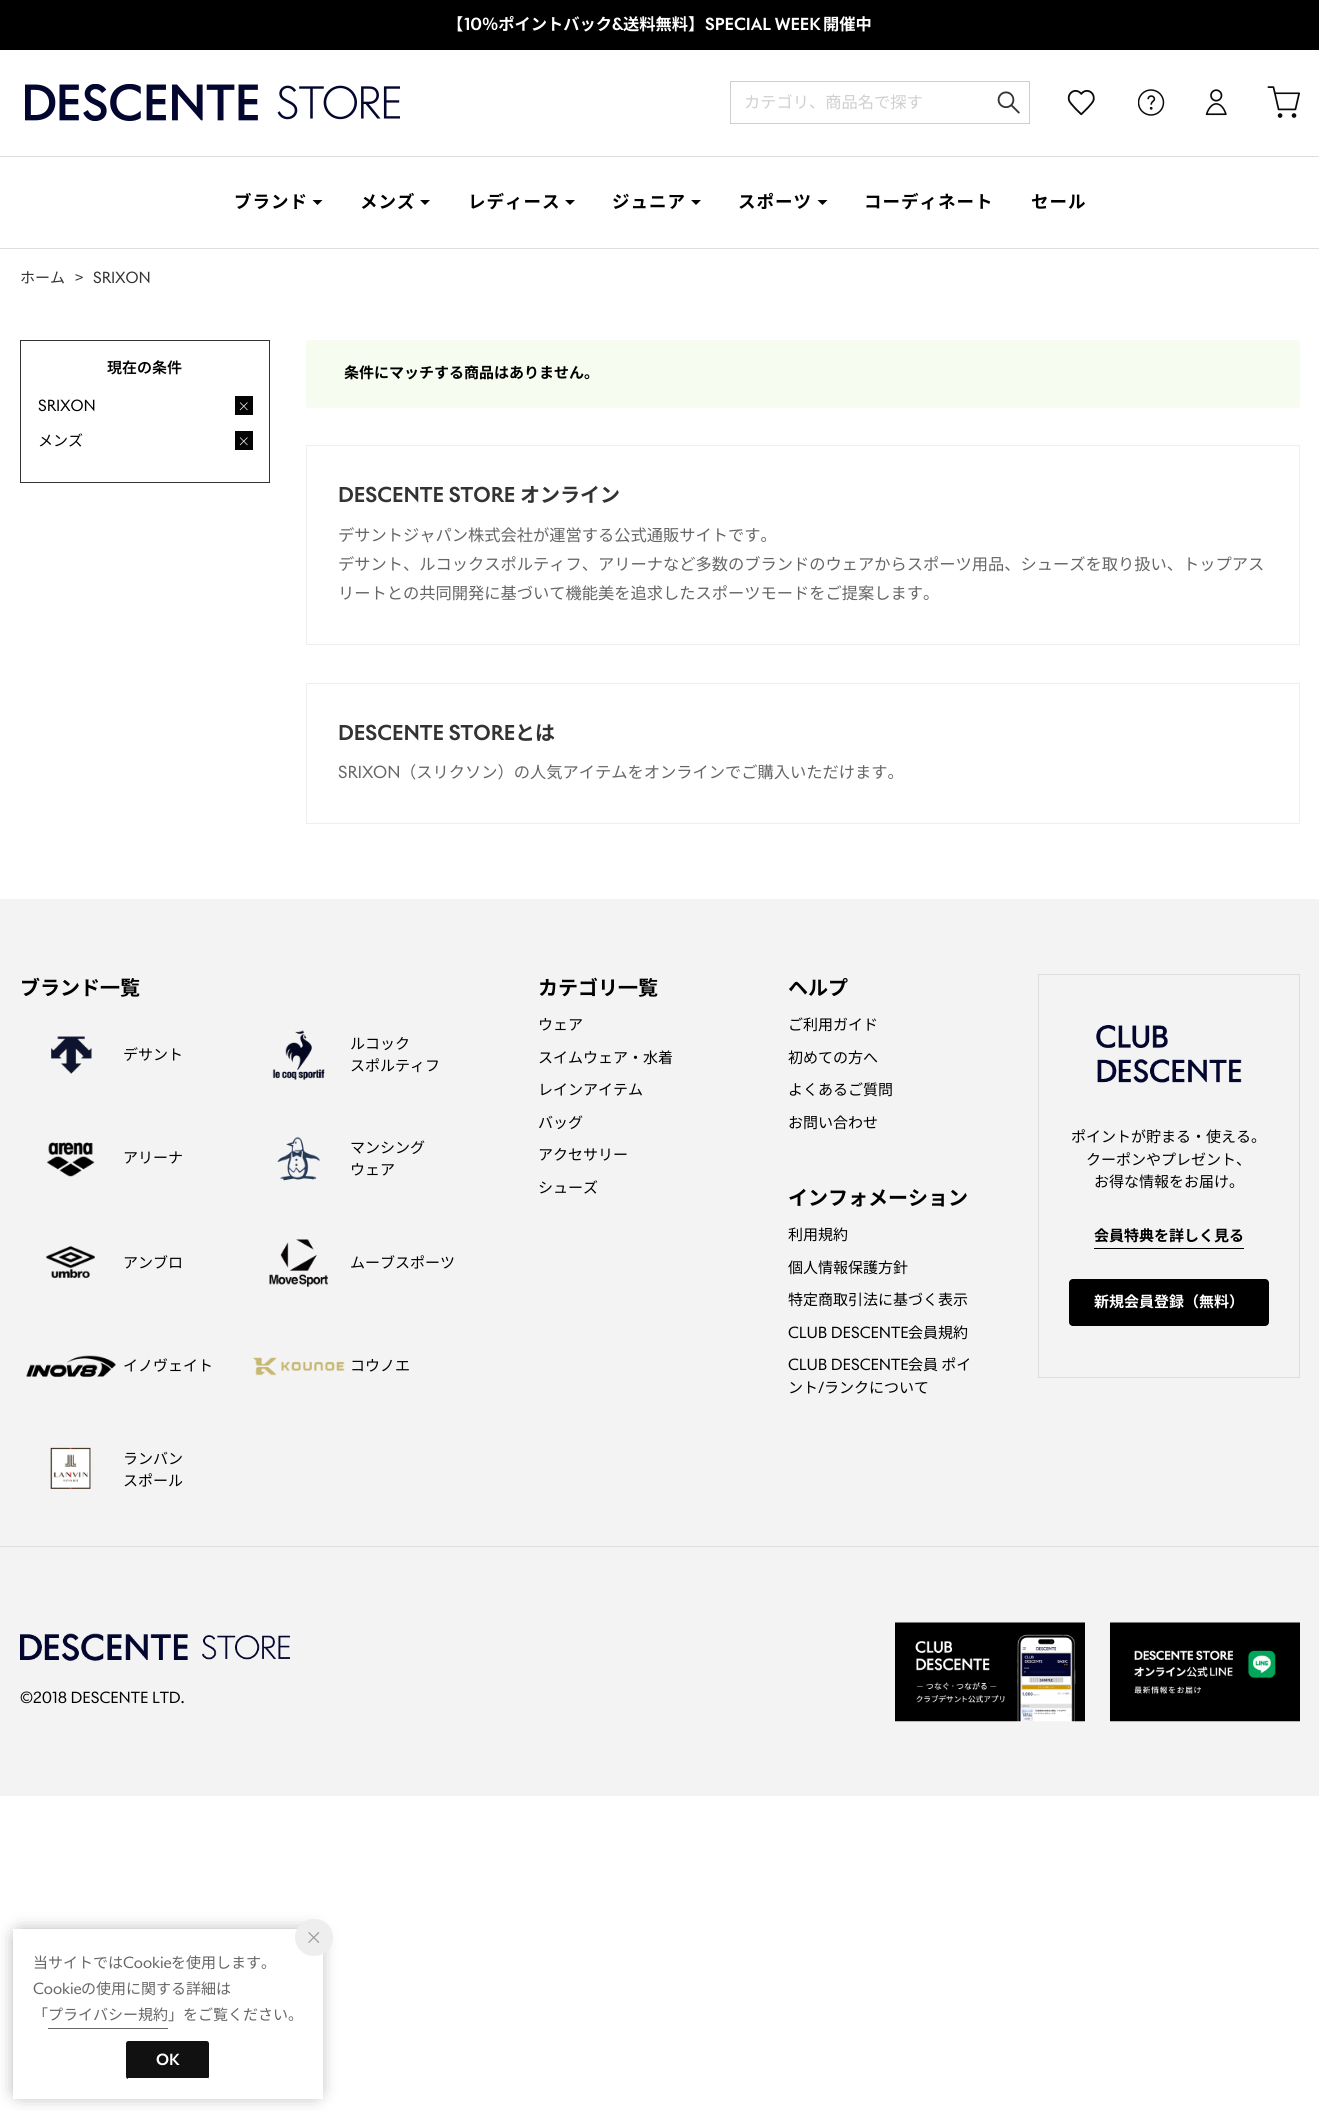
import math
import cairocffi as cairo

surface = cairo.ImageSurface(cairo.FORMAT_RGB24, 1319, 2111)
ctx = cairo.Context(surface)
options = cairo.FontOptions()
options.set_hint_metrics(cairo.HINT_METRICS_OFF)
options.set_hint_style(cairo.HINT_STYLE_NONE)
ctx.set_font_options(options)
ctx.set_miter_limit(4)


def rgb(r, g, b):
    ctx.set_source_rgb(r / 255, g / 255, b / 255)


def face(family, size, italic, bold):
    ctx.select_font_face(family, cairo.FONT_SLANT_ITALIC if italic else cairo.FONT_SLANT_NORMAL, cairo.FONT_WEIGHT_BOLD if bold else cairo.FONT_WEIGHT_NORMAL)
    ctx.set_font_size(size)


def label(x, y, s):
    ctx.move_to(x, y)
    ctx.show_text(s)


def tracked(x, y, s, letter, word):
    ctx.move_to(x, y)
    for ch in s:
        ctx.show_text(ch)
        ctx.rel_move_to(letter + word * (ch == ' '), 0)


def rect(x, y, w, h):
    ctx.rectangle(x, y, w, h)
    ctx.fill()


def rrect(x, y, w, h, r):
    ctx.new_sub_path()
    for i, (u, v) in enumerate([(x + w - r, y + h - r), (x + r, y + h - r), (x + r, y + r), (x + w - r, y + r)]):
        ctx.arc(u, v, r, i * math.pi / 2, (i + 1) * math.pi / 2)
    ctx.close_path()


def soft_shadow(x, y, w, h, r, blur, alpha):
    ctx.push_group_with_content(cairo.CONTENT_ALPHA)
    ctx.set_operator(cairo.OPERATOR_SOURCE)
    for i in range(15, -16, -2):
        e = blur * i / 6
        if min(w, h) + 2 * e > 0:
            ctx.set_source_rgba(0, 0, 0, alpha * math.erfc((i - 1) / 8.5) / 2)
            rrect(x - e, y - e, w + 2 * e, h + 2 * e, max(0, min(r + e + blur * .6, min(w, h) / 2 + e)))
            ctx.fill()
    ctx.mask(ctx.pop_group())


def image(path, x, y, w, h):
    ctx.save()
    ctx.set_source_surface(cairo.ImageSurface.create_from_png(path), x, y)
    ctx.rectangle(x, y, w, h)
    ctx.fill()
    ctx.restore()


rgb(255, 255, 255)
ctx.paint()
rgb(0, 0, 0)
rect(0, 0, 1319, 50)
face('Noto Sans JP', 16.25, 0, 1)
rgb(255, 255, 255)
label(447, 30, '【')
face('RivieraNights', 16.25, 0, 1)
label(464, 30, '10')
face('Noto Sans JP', 16.25, 0, 1)
label(482, 30, '％ポイントバック')
face('RivieraNights', 16.25, 0, 1)
label(612, 30, '&')
face('Noto Sans JP', 16.25, 0, 1)
label(623, 30, '送料無料】')
face('RivieraNights', 16.25, 0, 1)
label(705, 30, 'SPECIAL WEEK')
face('Noto Sans JP', 16.25, 0, 1)
label(823, 30, '開催中')
image('image0.png', 25, 84, 375, 37)
ctx.rectangle(730.5, 81.5, 299, 42)
rgb(207, 207, 207)
ctx.set_line_width(1)
ctx.stroke()
face('Noto Sans JP', 16.25, 0, 0)
label(744, 108, 'カテゴリ、商品名で探す')
image('image1.png', 997, 91, 23, 23)
image('image2.png', 1067, 89, 28, 27)
image('image3.png', 1138, 89, 27, 27)
image('image4.png', 1205, 89, 22, 27)
image('image5.png', 1267, 86, 33, 32)
rgb(221, 221, 221)
rect(0, 156, 1319, 1)
rect(0, 248, 1319, 1)
face('Noto Sans JP', 17.5, 0, 1)
rgb(0, 0, 0)
tracked(234, 208, 'ブランド', 1, 0)
rgb(4, 4, 4)
ctx.new_path()
ctx.move_to(312.5, 200)
ctx.line_to(322.5, 200)
ctx.line_to(317.5, 205)
ctx.close_path()
ctx.fill()
rgb(0, 0, 0)
tracked(360, 208, 'メンズ', 1, 0)
rgb(4, 4, 4)
ctx.new_path()
ctx.move_to(420, 200)
ctx.line_to(430, 200)
ctx.line_to(425, 205)
ctx.close_path()
ctx.fill()
rgb(0, 0, 0)
tracked(468, 208, 'レディース', 1, 0)
rgb(4, 4, 4)
ctx.new_path()
ctx.move_to(565, 200)
ctx.line_to(575, 200)
ctx.line_to(570, 205)
ctx.close_path()
ctx.fill()
rgb(0, 0, 0)
tracked(612, 208, 'ジュニア', 1, 0)
rgb(4, 4, 4)
ctx.new_path()
ctx.move_to(691, 200)
ctx.line_to(701, 200)
ctx.line_to(696, 205)
ctx.close_path()
ctx.fill()
rgb(0, 0, 0)
tracked(738, 208, 'スポーツ', 1, 0)
rgb(4, 4, 4)
ctx.new_path()
ctx.move_to(817.5, 200)
ctx.line_to(827.5, 200)
ctx.line_to(822.5, 205)
ctx.close_path()
ctx.fill()
rgb(0, 0, 0)
tracked(864, 208, 'コーディネート', 1, 0)
tracked(1031, 208, 'セール', 1, 0)
face('Noto Sans JP', 15, 0, 0)
rgb(51, 51, 51)
label(20, 283, 'ホーム')
label(75, 283, '>')
face('RivieraNights', 15, 0, 0)
label(93, 283, 'SRIXON')
ctx.rectangle(20.5, 340.5, 249, 142)
ctx.stroke()
face('Noto Sans JP SemiBold', 15, 0, 0)
rgb(0, 0, 0)
label(107, 373, '現在の条件')
face('RivieraNights', 15, 0, 0)
label(38, 411, 'SRIXON')
rgb(4, 4, 4)
rect(235, 396, 18, 19)
image('image6.png', 239, 402, 9, 9)
face('Noto Sans JP', 15, 0, 0)
rgb(0, 0, 0)
label(38, 446, 'メンズ')
rgb(4, 4, 4)
rect(235, 431, 18, 19)
image('image6.png', 239, 437, 9, 9)
rgb(247, 252, 240)
rrect(306, 340, 994, 68, 2.5)
ctx.fill()
face('Noto Sans JP', 15, 0, 1)
rgb(0, 0, 0)
label(344, 378, '条件にマッチする商品はありません。')
ctx.rectangle(306.5, 445.5, 993, 199)
rgb(238, 238, 238)
ctx.stroke()
face('RivieraNights', 20, 0, 1)
rgb(51, 51, 51)
label(338, 502, 'DESCENTE STORE')
face('Noto Sans JP', 20, 0, 1)
label(520, 502, 'オンライン')
face('Noto Sans JP', 16.25, 0, 0)
rgb(102, 102, 102)
label(338, 541, 'デサントジャパン株式会社が運営する公式通販サイトです。')
label(338, 570, 'デサント、ルコックスポルティフ、アリーナなど多数のブランドのウェアからスポーツ用品、シューズを取り扱い、トップアス')
label(338, 599, 'リートとの共同開発に基づいて機能美を追求したスポーツモードをご提案します。')
ctx.rectangle(306.5, 683.5, 993, 140)
rgb(238, 238, 238)
ctx.stroke()
face('RivieraNights', 20, 0, 1)
rgb(51, 51, 51)
label(338, 740, 'DESCENTE STORE')
face('Noto Sans JP', 20, 0, 1)
label(515, 740, 'とは')
face('RivieraNights', 16.25, 0, 0)
rgb(102, 102, 102)
label(338, 778, 'SRIXON')
face('Noto Sans JP', 16.25, 0, 0)
label(400, 778, '（スリクソン）の人気アイテムをオンラインでご購入いただけます。')
rgb(243, 243, 243)
rect(0, 899, 1319, 897)
face('Noto Sans JP', 20, 0, 1)
rgb(0, 0, 0)
label(20, 995, 'ブランド一覧')
image('image7.png', 51, 1036, 41, 38)
face('Noto Sans JP', 15, 0, 0)
label(123, 1060, 'デサント')
image('image8.png', 272, 1030, 53, 50)
label(350, 1049, 'ルコック')
label(350, 1071, 'スポルティフ')
image('image9.png', 46, 1142, 49, 35)
label(123, 1163, 'アリーナ')
image('image10.png', 277, 1136, 43, 45)
label(350, 1153, 'マンシング')
label(350, 1175, 'ウェア')
image('image11.png', 46, 1246, 49, 32)
label(123, 1268, 'アンブロ')
image('image12.png', 269, 1239, 59, 48)
label(350, 1268, 'ムーブスポーツ')
image('image13.png', 26, 1355, 90, 22)
label(123, 1371, 'イノヴェイト')
image('image14.png', 253, 1357, 92, 19)
label(350, 1371, 'コウノエ')
image('image15.png', 50, 1447, 41, 42)
label(123, 1464, 'ランバン')
label(123, 1486, 'スポール')
face('Noto Sans JP', 20, 0, 1)
label(538, 995, 'カテゴリ一覧')
face('Noto Sans JP', 15, 0, 0)
label(538, 1030, 'ウェア')
label(538, 1063, 'スイムウェア・水着')
label(538, 1095, 'レインアイテム')
label(538, 1128, 'バッグ')
label(538, 1160, 'アクセサリー')
label(538, 1193, 'シューズ')
face('Noto Sans JP', 20, 0, 1)
label(788, 995, 'ヘルプ')
face('Noto Sans JP', 15, 0, 0)
label(788, 1030, 'ご利用ガイド')
label(788, 1063, '初めての方へ')
label(788, 1095, 'よくあるご質問')
label(788, 1128, 'お問い合わせ')
face('Noto Sans JP', 20, 0, 1)
label(788, 1205, 'インフォメーション')
face('Noto Sans JP', 15, 0, 0)
label(788, 1240, '利用規約')
label(788, 1273, '個人情報保護方針')
label(788, 1305, '特定商取引法に基づく表示')
face('RivieraNights', 15, 0, 0)
label(788, 1338, 'CLUB DESCENTE')
face('Noto Sans JP', 15, 0, 0)
label(908, 1338, '会員規約')
face('RivieraNights', 15, 0, 0)
label(788, 1370, 'CLUB DESCENTE')
face('Noto Sans JP', 15, 0, 0)
label(908, 1370, '会員 ポイ')
label(788, 1393, 'ント')
face('RivieraNights', 15, 0, 0)
label(818, 1393, '/')
face('Noto Sans JP', 15, 0, 0)
label(824, 1393, 'ランクについて')
ctx.rectangle(1038.5, 974.5, 261, 403)
rgb(221, 221, 221)
ctx.stroke()
image('image16.png', 1096, 1025, 146, 58)
rgb(0, 0, 0)
label(1071, 1142, 'ポイントが貯まる・使える。')
label(1086, 1165, 'クーポンやプレゼント、')
label(1094, 1187, 'お得な情報をお届け。')
face('Noto Sans JP', 15, 0, 1)
label(1094, 1241, '会員特典を詳しく見る')
rect(1094, 1248, 150, 1)
rrect(1069, 1279, 200, 47, 4)
ctx.fill()
rgb(255, 255, 255)
label(1094, 1307, '新規会員登録（無料）')
rgb(221, 221, 221)
rect(0, 1546, 1319, 1)
image('image17.png', 20, 1633, 270, 28)
face('RivieraNights', 15, 0, 0)
rgb(0, 0, 0)
label(20, 1703, '©2018 DESCENTE LTD.')
image('image18.png', 895, 1622, 190, 100)
image('image19.png', 1110, 1622, 190, 100)
rgb(0, 0, 0)
soft_shadow(20, 1936, 295, 155, 0, 10, 0.6)
rgb(255, 255, 255)
rect(13, 1929, 310, 170)
rgb(238, 238, 238)
rrect(295, 1919, 38, 37, 18.5)
ctx.fill()
image('image20.png', 308, 1932, 12, 11)
face('Noto Sans JP', 15, 0, 0)
rgb(102, 102, 102)
label(33, 1968, '当サイトでは')
face('RivieraNights', 15, 0, 0)
label(123, 1968, 'Cookie')
face('Noto Sans JP', 15, 0, 0)
label(171, 1968, 'を使用します。')
face('RivieraNights', 15, 0, 0)
label(33, 1994, 'Cookie')
face('Noto Sans JP', 15, 0, 0)
label(81, 1994, 'の使用に関する詳細は')
label(33, 2020, '「プライバシー規約」をご覧ください。')
rect(48, 2028, 120, 1)
rgb(17, 17, 17)
rrect(126, 2041, 83, 38, 2.5)
ctx.fill()
rgb(255, 255, 255)
rect(128, 2078, 80, 1)
face('RivieraNights', 15, 0, 1)
label(156, 2065, 'OK')
surface.write_to_png('render.png')
